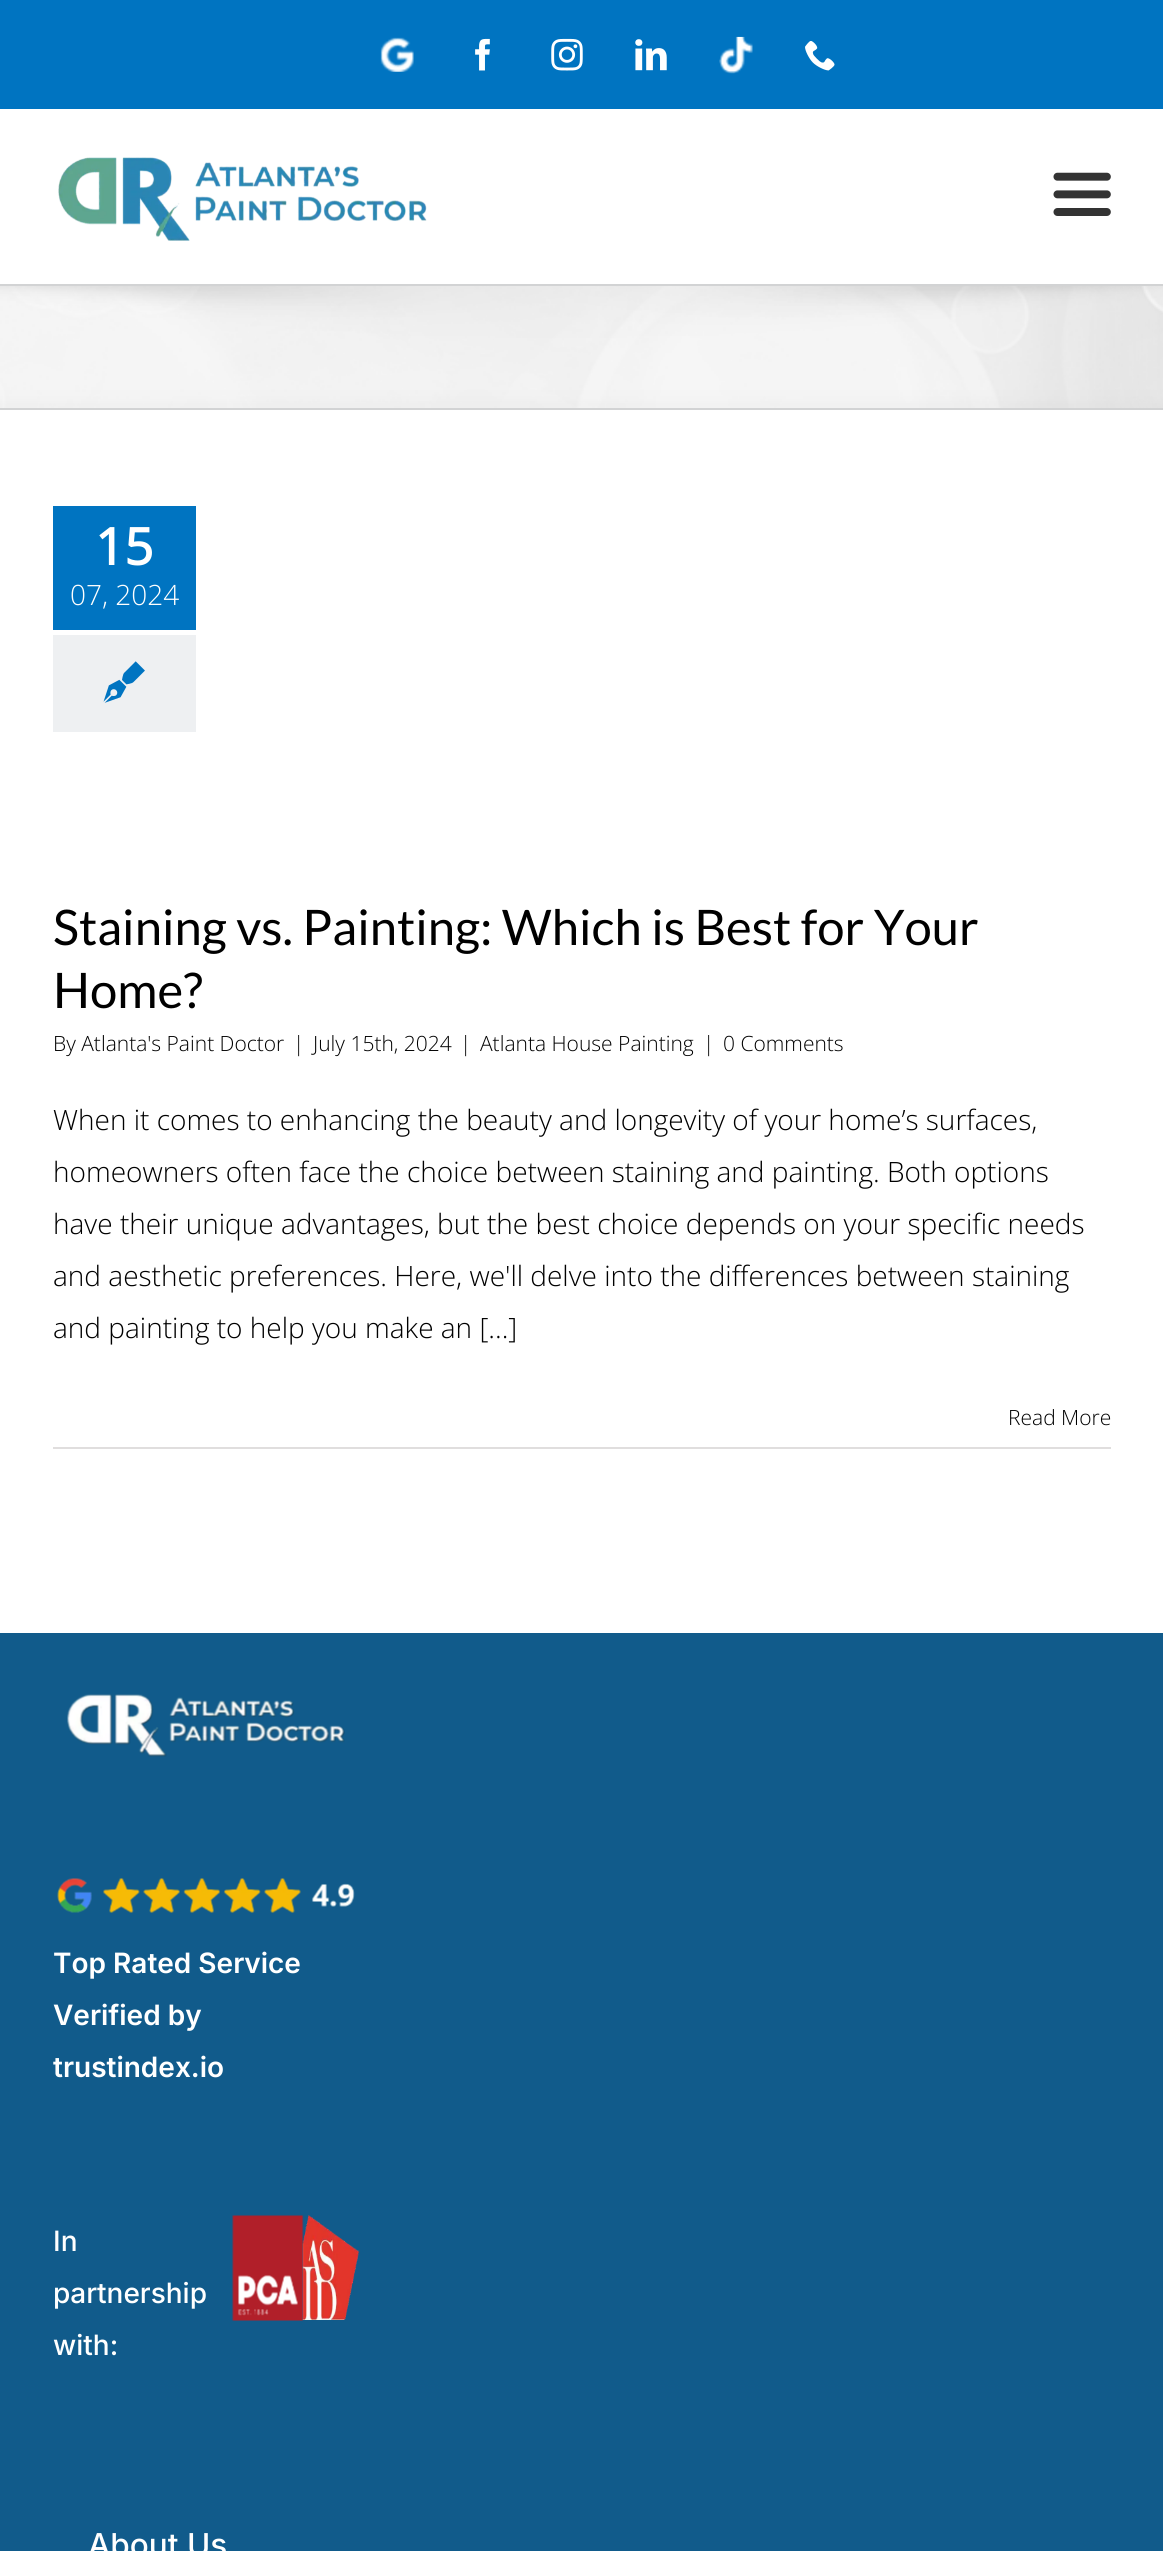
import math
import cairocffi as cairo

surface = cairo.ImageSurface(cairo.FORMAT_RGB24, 1163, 2551)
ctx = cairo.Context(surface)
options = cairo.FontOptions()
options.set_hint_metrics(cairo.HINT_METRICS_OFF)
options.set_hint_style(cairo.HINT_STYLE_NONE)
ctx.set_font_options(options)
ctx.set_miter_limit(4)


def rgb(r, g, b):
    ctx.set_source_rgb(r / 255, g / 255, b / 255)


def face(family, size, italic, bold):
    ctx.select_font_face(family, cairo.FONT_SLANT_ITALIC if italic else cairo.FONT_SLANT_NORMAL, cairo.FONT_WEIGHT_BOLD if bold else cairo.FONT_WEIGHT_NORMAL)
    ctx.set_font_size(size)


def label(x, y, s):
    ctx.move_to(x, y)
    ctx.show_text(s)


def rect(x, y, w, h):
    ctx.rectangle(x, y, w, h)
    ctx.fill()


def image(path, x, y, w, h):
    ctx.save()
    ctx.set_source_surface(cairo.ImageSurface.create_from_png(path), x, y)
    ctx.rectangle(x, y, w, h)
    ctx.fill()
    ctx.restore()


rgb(255, 255, 255)
ctx.paint()
rgb(0, 116, 193)
rect(0, 0, 1163, 109)
image('image0.png', 380, 37, 34, 35)
image('image1.png', 475, 38, 15, 33)
image('image2.png', 551, 38, 32, 33)
image('image3.png', 635, 39, 32, 32)
image('image4.png', 719, 36, 34, 38)
image('image5.png', 805, 41, 30, 30)
image('image6.png', 58, 157, 369, 84)
image('image7.png', 1053, 172, 58, 44)
rgb(246, 246, 246)
rect(0, 286, 1163, 122)
image('image8.png', 0, 286, 1163, 122)
rgb(210, 211, 212)
rect(0, 284, 1163, 2)
rect(0, 408, 1163, 2)
rgb(0, 116, 193)
rect(53, 506, 143, 124)
face('Open Sans', 51, 0, 1)
rgb(255, 255, 255)
label(95, 565, '15')
face('Open Sans Light', 28, 0, 0)
label(70, 605, '07, 2024')
rgb(238, 240, 242)
rect(53, 635, 143, 97)
image('image9.png', 103, 661, 42, 42)
face('Lato', 49, 0, 0)
rgb(0, 0, 0)
label(53, 945, 'Staining vs. Painting: Which is Best for Your')
label(53, 1008, 'Home?')
face('Open Sans Light', 21, 0, 0)
label(53, 1051, 'By Atlanta\'s Paint Doctor')
label(293, 1051, '|')
label(313, 1051, 'July 15th, 2024')
label(460, 1051, '|')
label(480, 1051, 'Atlanta House Painting')
label(703, 1051, '|')
label(723, 1051, '0 Comments')
face('Open Sans Light', 28, 0, 0)
label(53, 1130, 'When it comes to enhancing the beauty and longevity of your home’s surfaces,')
label(53, 1182, 'homeowners often face the choice between staining and painting. Both options')
label(53, 1234, 'have their unique advantages, but the best choice depends on your specific needs')
label(53, 1286, 'and aesthetic preferences. Here, we\'ll delve into the differences between staining')
label(53, 1338, 'and painting to help you make an [...]')
rgb(224, 222, 222)
rect(53, 1447, 1058, 2)
face('Open Sans Light', 21, 0, 0)
rgb(0, 0, 0)
label(1008, 1425, 'Read More')
rgb(17, 91, 139)
rect(0, 1633, 1163, 918)
image('image10.png', 67, 1694, 278, 63)
image('image11.png', 57, 1878, 298, 35)
face('Inter SemiBold', 28, 0, 0)
rgb(255, 255, 255)
label(53, 1973, 'Top Rated Service')
label(53, 2025, 'Verified by')
label(53, 2077, 'trustindex.io')
face('Inter Medium', 28, 0, 0)
label(53, 2251, 'In')
label(53, 2303, 'partnership')
label(53, 2355, 'with:')
image('image12.png', 232, 2215, 72, 106)
image('image13.png', 302, 2215, 57, 105)
face('Inter Medium', 31.5, 0, 0)
label(88, 2556, 'About Us')
surface.write_to_png('render.png')
